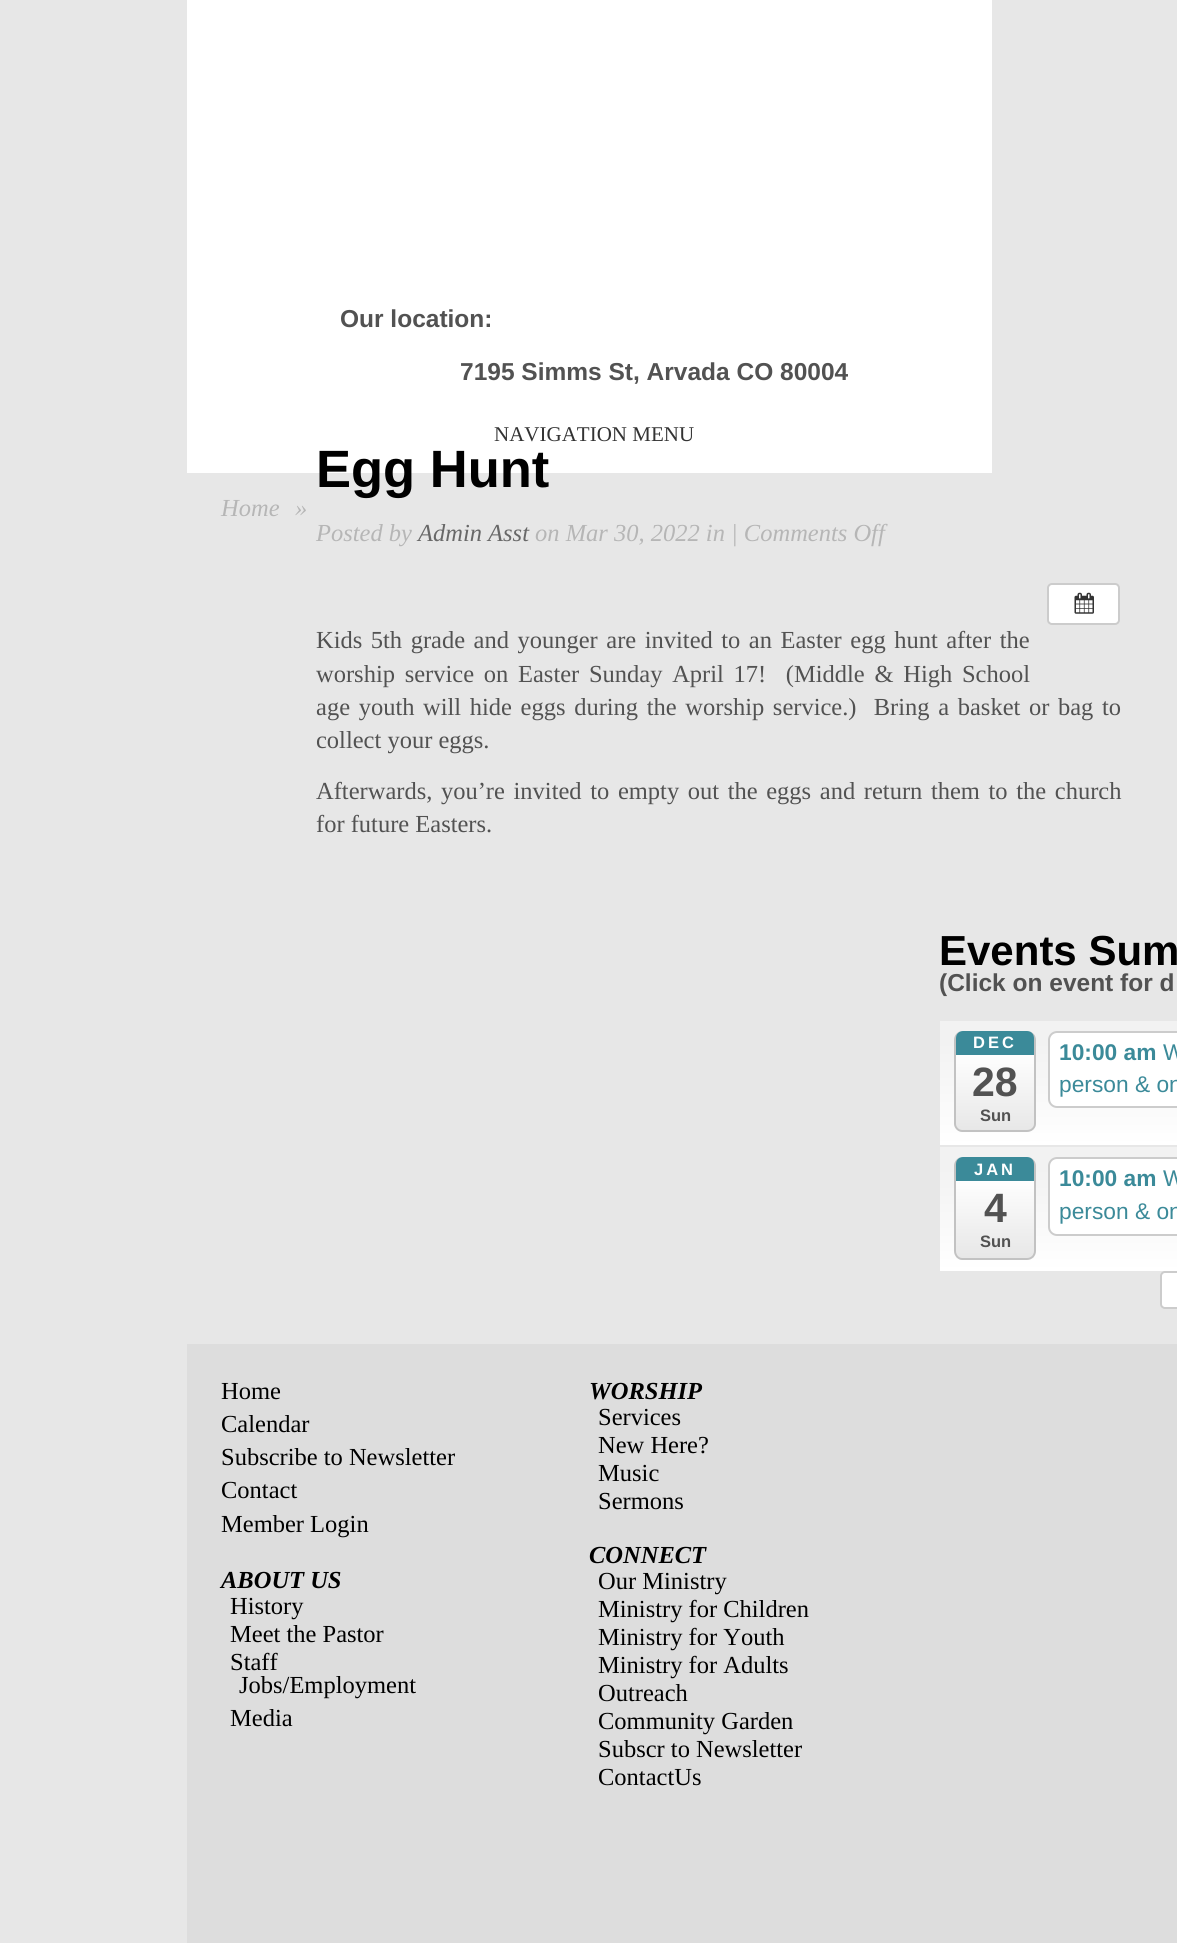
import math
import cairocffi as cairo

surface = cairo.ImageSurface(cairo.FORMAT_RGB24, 1177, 1943)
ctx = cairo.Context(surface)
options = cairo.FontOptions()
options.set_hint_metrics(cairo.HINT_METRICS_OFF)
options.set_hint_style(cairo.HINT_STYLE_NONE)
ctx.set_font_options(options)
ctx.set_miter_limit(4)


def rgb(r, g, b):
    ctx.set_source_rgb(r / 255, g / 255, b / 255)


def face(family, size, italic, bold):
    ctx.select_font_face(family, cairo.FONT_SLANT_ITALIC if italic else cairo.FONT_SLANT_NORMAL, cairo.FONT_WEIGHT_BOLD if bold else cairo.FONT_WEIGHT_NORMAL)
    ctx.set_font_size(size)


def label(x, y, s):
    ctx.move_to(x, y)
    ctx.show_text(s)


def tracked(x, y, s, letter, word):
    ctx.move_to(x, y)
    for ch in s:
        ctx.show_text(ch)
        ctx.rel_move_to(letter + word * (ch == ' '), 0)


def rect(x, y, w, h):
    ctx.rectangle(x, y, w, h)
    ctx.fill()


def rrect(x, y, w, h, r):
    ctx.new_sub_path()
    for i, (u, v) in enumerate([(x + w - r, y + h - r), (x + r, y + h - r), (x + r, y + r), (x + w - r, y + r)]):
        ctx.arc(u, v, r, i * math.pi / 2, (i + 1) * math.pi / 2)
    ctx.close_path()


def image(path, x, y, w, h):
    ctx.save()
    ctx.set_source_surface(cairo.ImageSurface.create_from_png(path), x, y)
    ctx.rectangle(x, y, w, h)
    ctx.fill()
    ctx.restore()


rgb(231, 231, 231)
ctx.paint()
rgb(255, 255, 255)
rect(187, 0, 805, 473)
face('Liberation Sans', 24.5, 0, 1)
rgb(82, 82, 82)
label(340, 327, 'Our location:')
label(460, 380, '7195 Simms St, Arvada CO 80004')
face('Liberation Serif', 21, 0, 0)
rgb(51, 51, 51)
label(494, 441, 'NAVIGATION MENU')
face('Liberation Serif', 24.5, 1, 0)
rgb(182, 182, 182)
label(221, 516, 'Home')
label(295, 516, '»')
face('Liberation Sans', 52.5, 0, 1)
rgb(0, 0, 0)
label(316, 487, 'Egg Hunt')
face('Liberation Serif', 24.5, 1, 0)
rgb(182, 182, 182)
label(316, 541, 'Posted by')
rgb(104, 104, 104)
label(418, 541, 'Admin Asst')
rgb(182, 182, 182)
label(535, 541, 'on Mar 30, 2022 in | Comments Off')
rgb(255, 255, 255)
rrect(1048, 584, 71, 40, 4)
ctx.fill_preserve()
rgb(204, 204, 204)
ctx.stroke()
image('image0.png', 1074, 592, 20, 22)
face('Liberation Serif', 24.5, 0, 0)
rgb(82, 82, 82)
tracked(316, 648, 'Kids 5th grade and younger are invited to an Easter egg hunt after the', 0, 2.4)
tracked(316, 682, 'worship service on Easter Sunday April 17!  (Middle & High School', 0, 3.6)
tracked(316, 715, 'age youth will hide eggs during the worship service.)  Bring a basket or bag to', 0, 2.5)
label(316, 748, 'collect your eggs.')
tracked(316, 799, 'Afterwards, you’re invited to empty out the eggs and return them to the church', 0, 2.5)
label(316, 832, 'for future Easters.')
face('Liberation Sans', 42, 0, 1)
rgb(0, 0, 0)
label(939, 965, 'Events Sum')
face('Liberation Sans', 24.5, 0, 1)
rgb(82, 82, 82)
label(939, 991, '(Click on event for d')
gradient = cairo.LinearGradient(1141, 1020, 1141, 1145)
gradient.add_color_stop_rgba(0, 0.949, 0.949, 0.949, 1)
gradient.add_color_stop_rgba(0.18, 0.949, 0.949, 0.949, 1)
gradient.add_color_stop_rgba(1, 1, 1, 1, 1)
ctx.set_source(gradient)
rect(940, 1021, 237, 124)
ctx.save()
rrect(954, 1031, 82, 101, 9)
ctx.clip()
gradient = cairo.LinearGradient(995, 1031, 995, 1131)
gradient.add_color_stop_rgba(0, 1, 1, 1, 1)
gradient.add_color_stop_rgba(0.21, 1, 1, 1, 1)
gradient.add_color_stop_rgba(1, 0.906, 0.906, 0.906, 1)
ctx.set_source(gradient)
rect(956, 1031, 78, 100)
ctx.restore()
rgb(194, 194, 194)
ctx.set_fill_rule(cairo.FILL_RULE_EVEN_ODD)
ctx.new_path()
ctx.move_to(962, 1031)
ctx.line_to(1027, 1031)
ctx.curve_to(1032, 1031, 1036, 1035, 1036, 1040)
ctx.line_to(1036, 1124)
ctx.curve_to(1036, 1128, 1032, 1132, 1027, 1132)
ctx.line_to(962, 1132)
ctx.curve_to(958, 1132, 954, 1128, 954, 1124)
ctx.line_to(954, 1040)
ctx.curve_to(954, 1035, 958, 1031, 962, 1031)
ctx.close_path()
ctx.move_to(962, 1031)
ctx.line_to(1027, 1031)
ctx.curve_to(1031, 1031, 1034, 1035, 1034, 1040)
ctx.line_to(1034, 1124)
ctx.curve_to(1034, 1127, 1031, 1130, 1027, 1130)
ctx.line_to(962, 1130)
ctx.curve_to(959, 1130, 956, 1127, 956, 1124)
ctx.line_to(956, 1040)
ctx.curve_to(956, 1035, 959, 1031, 962, 1031)
ctx.close_path()
ctx.fill()
rgb(59, 138, 153)
ctx.new_path()
ctx.move_to(963, 1031)
ctx.line_to(1027, 1031)
ctx.curve_to(1031, 1031, 1034, 1034, 1034, 1038)
ctx.line_to(1034, 1055)
ctx.line_to(956, 1055)
ctx.line_to(956, 1038)
ctx.curve_to(956, 1034, 959, 1031, 963, 1031)
ctx.close_path()
ctx.fill()
face('Liberation Sans', 16.5, 0, 1)
rgb(255, 255, 255)
tracked(973, 1048, 'DEC', 3, 0)
face('Liberation Sans', 41, 0, 1)
rgb(82, 82, 82)
label(972, 1096, '28')
face('Liberation Sans', 16.5, 0, 1)
label(980, 1121, 'Sun')
rgb(255, 255, 255)
rrect(1049, 1032, 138, 75, 8)
ctx.fill_preserve()
rgb(204, 204, 204)
ctx.stroke()
face('Liberation Sans', 22.75, 0, 1)
rgb(59, 138, 153)
label(1059, 1060, '10:00 am')
face('Liberation Sans', 22.75, 0, 0)
label(1163, 1060, 'W')
label(1059, 1092, 'person & on')
gradient = cairo.LinearGradient(1141, 1146, 1141, 1271)
gradient.add_color_stop_rgba(0, 0.949, 0.949, 0.949, 1)
gradient.add_color_stop_rgba(0.18, 0.949, 0.949, 0.949, 1)
gradient.add_color_stop_rgba(1, 1, 1, 1, 1)
ctx.set_source(gradient)
rect(940, 1147, 237, 124)
ctx.save()
ctx.set_fill_rule(cairo.FILL_RULE_WINDING)
rrect(954, 1157, 82, 103, 9)
ctx.clip()
gradient = cairo.LinearGradient(995, 1157, 995, 1258)
gradient.add_color_stop_rgba(0, 1, 1, 1, 1)
gradient.add_color_stop_rgba(0.2, 1, 1, 1, 1)
gradient.add_color_stop_rgba(1, 0.906, 0.906, 0.906, 1)
ctx.set_source(gradient)
rect(956, 1157, 78, 101)
ctx.restore()
rgb(194, 194, 194)
ctx.new_path()
ctx.move_to(962, 1157)
ctx.line_to(1027, 1157)
ctx.curve_to(1032, 1157, 1036, 1161, 1036, 1166)
ctx.line_to(1036, 1251)
ctx.curve_to(1036, 1256, 1032, 1260, 1027, 1260)
ctx.line_to(962, 1260)
ctx.curve_to(958, 1260, 954, 1256, 954, 1251)
ctx.line_to(954, 1166)
ctx.curve_to(954, 1161, 958, 1157, 962, 1157)
ctx.close_path()
ctx.move_to(962, 1157)
ctx.line_to(1027, 1157)
ctx.curve_to(1031, 1157, 1034, 1161, 1034, 1166)
ctx.line_to(1034, 1251)
ctx.curve_to(1034, 1255, 1031, 1258, 1027, 1258)
ctx.line_to(962, 1258)
ctx.curve_to(959, 1258, 956, 1255, 956, 1251)
ctx.line_to(956, 1166)
ctx.curve_to(956, 1161, 959, 1157, 962, 1157)
ctx.close_path()
ctx.fill()
rgb(59, 138, 153)
ctx.new_path()
ctx.move_to(963, 1157)
ctx.line_to(1027, 1157)
ctx.curve_to(1031, 1157, 1034, 1160, 1034, 1164)
ctx.line_to(1034, 1181)
ctx.line_to(956, 1181)
ctx.line_to(956, 1164)
ctx.curve_to(956, 1160, 959, 1157, 963, 1157)
ctx.close_path()
ctx.fill()
face('Liberation Sans', 16.5, 0, 1)
rgb(255, 255, 255)
tracked(974, 1175, 'JAN', 3, 0)
face('Liberation Sans', 41, 0, 1)
rgb(82, 82, 82)
label(984, 1222, '4')
face('Liberation Sans', 16.5, 0, 1)
label(980, 1247, 'Sun')
rgb(255, 255, 255)
rrect(1049, 1158, 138, 77, 8)
ctx.fill_preserve()
rgb(204, 204, 204)
ctx.stroke()
face('Liberation Sans', 22.75, 0, 1)
rgb(59, 138, 153)
label(1059, 1186, '10:00 am')
face('Liberation Sans', 22.75, 0, 0)
label(1163, 1186, 'W')
label(1059, 1219, 'person & on')
rgb(255, 255, 255)
rrect(1161, 1272, 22, 36, 4)
ctx.fill_preserve()
rgb(204, 204, 204)
ctx.stroke()
rgb(221, 221, 221)
rect(187, 1344, 990, 599)
face('Liberation Serif', 24.5, 0, 0)
rgb(0, 0, 0)
label(221, 1399, 'Home')
label(221, 1432, 'Calendar')
label(221, 1465, 'Subscribe to Newsletter')
label(221, 1498, 'Contact')
label(221, 1532, 'Member Login')
face('Liberation Serif', 24.5, 1, 1)
label(221, 1588, 'ABOUT US')
face('Liberation Serif', 24.5, 0, 0)
label(230, 1614, 'History')
label(230, 1642, 'Meet the Pastor')
label(230, 1670, 'Staff')
label(239, 1693, 'Jobs/Employment')
label(230, 1726, 'Media')
face('Liberation Serif', 24.5, 1, 1)
label(589, 1399, 'WORSHIP')
face('Liberation Serif', 24.5, 0, 0)
label(598, 1425, 'Services')
label(598, 1453, 'New Here?')
label(598, 1481, 'Music')
label(598, 1509, 'Sermons')
face('Liberation Serif', 24.5, 1, 1)
label(589, 1563, 'CONNECT')
face('Liberation Serif', 24.5, 0, 0)
label(598, 1589, 'Our Ministry')
label(598, 1617, 'Ministry for Children')
label(598, 1645, 'Ministry for Youth')
label(598, 1673, 'Ministry for Adults')
label(598, 1701, 'Outreach')
label(598, 1729, 'Community Garden')
label(598, 1757, 'Subscr to Newsletter')
label(598, 1785, 'ContactUs')
surface.write_to_png('render.png')
